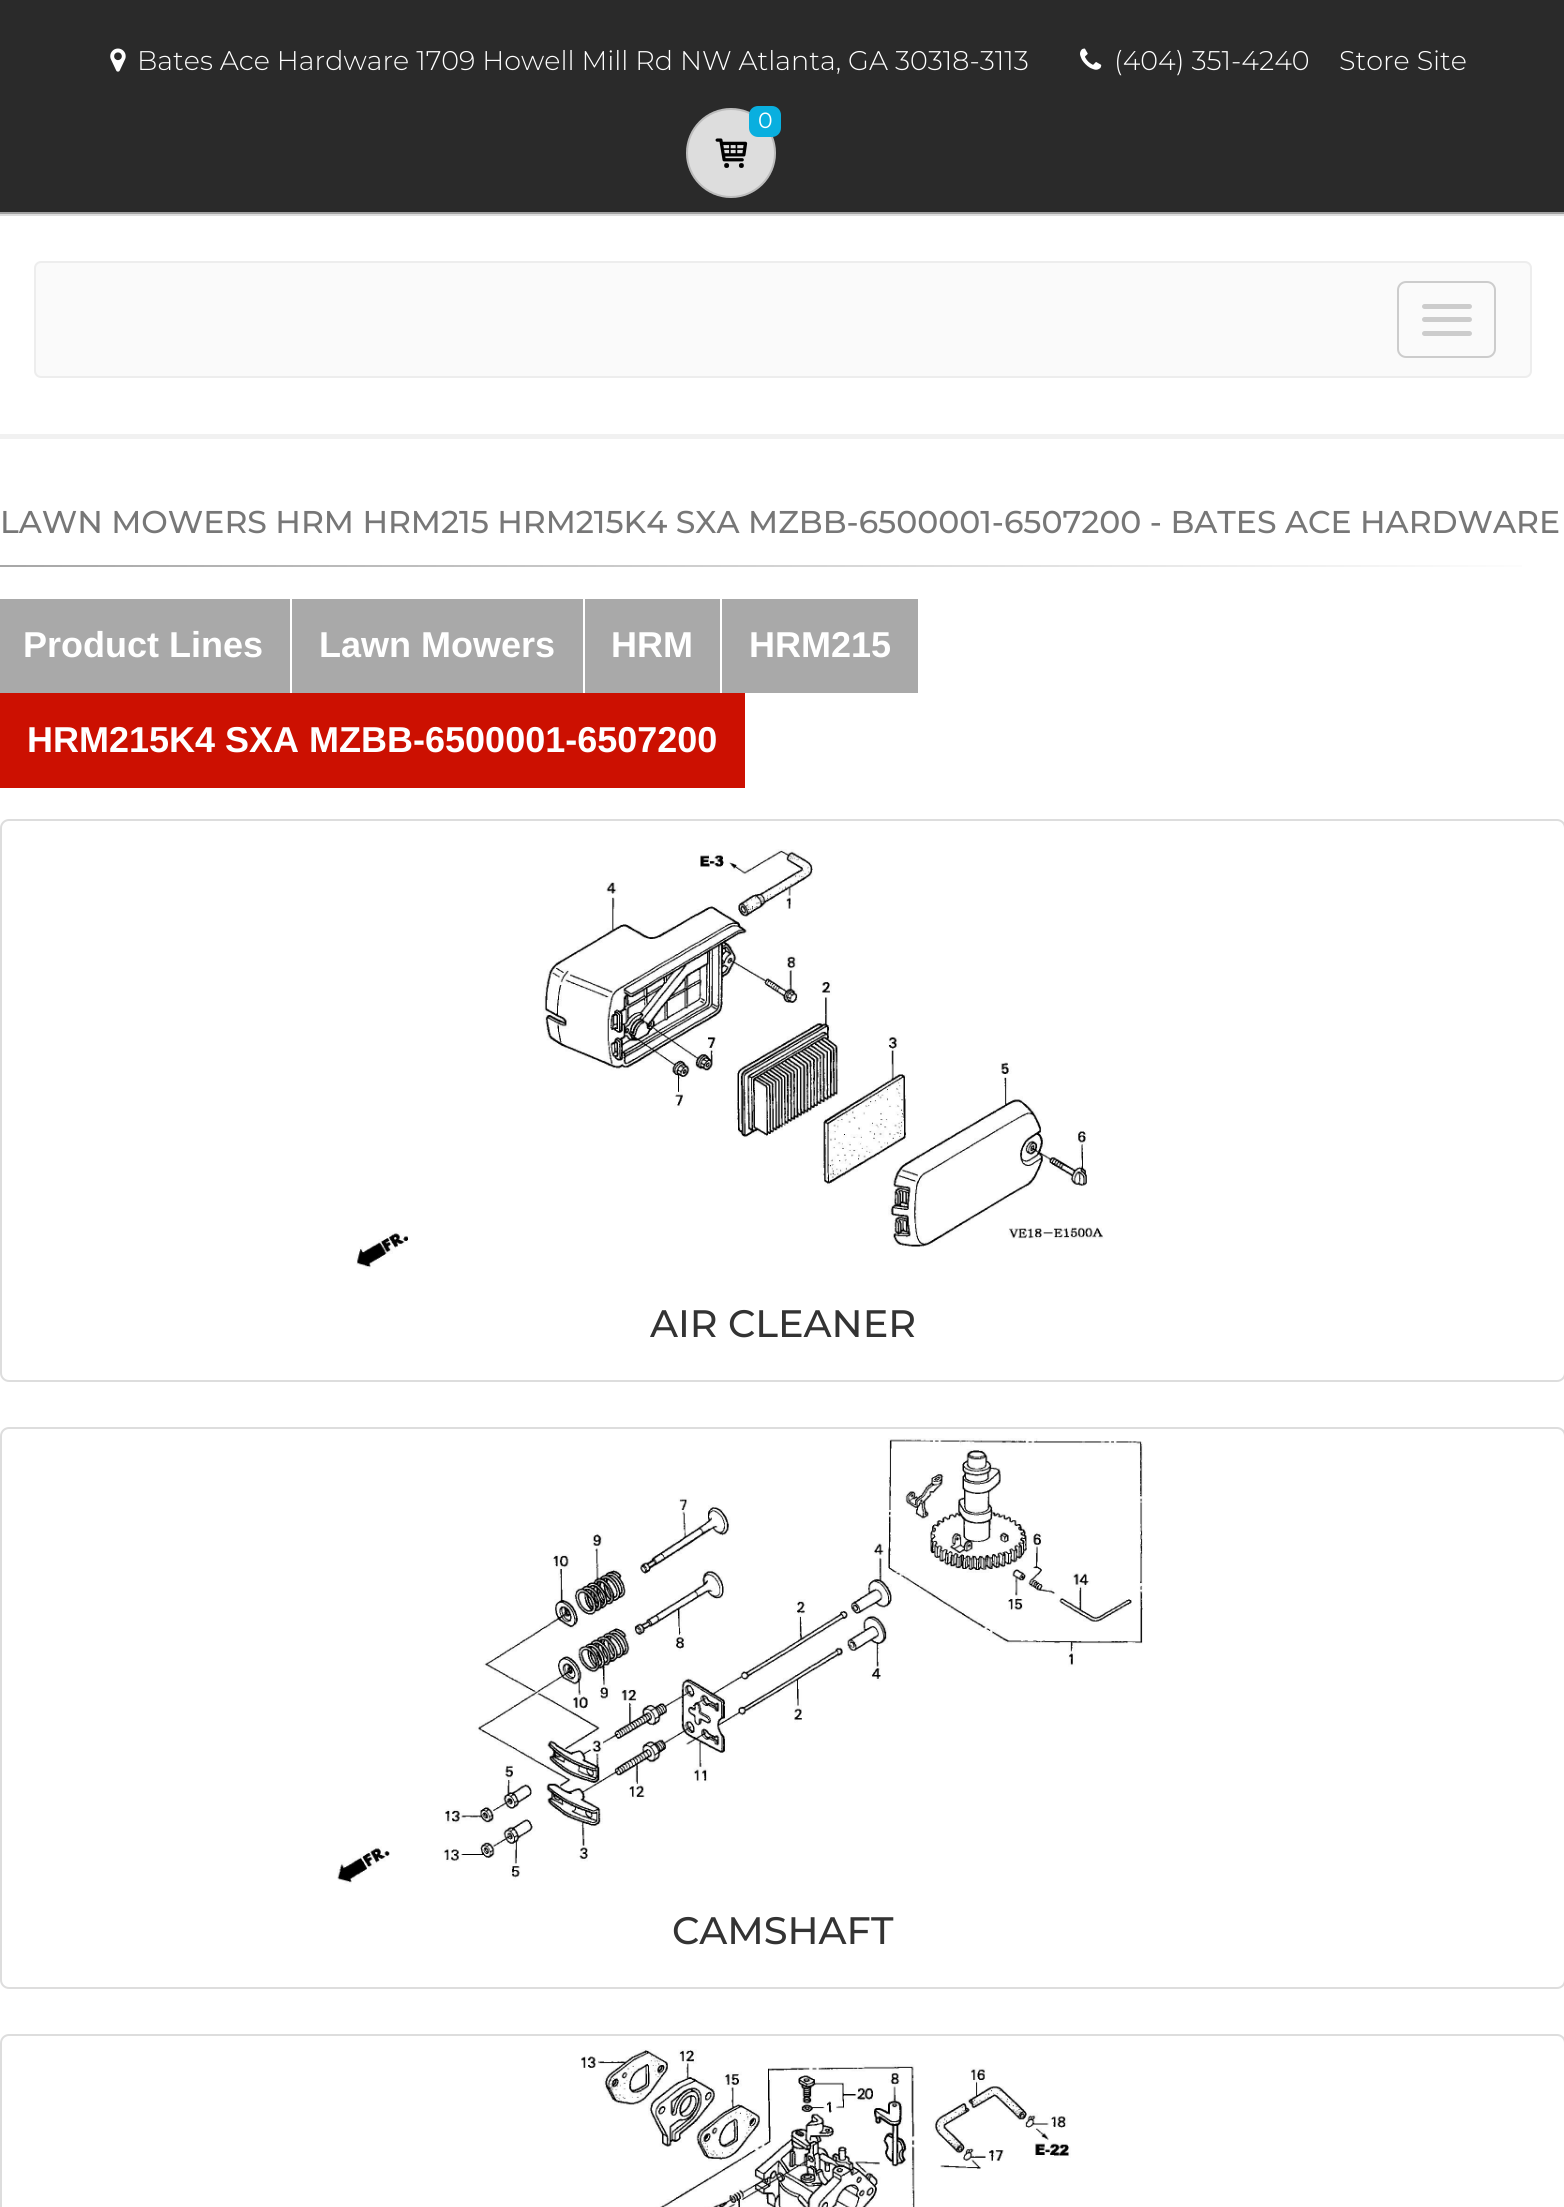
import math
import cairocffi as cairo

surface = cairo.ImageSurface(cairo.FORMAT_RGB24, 1564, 2207)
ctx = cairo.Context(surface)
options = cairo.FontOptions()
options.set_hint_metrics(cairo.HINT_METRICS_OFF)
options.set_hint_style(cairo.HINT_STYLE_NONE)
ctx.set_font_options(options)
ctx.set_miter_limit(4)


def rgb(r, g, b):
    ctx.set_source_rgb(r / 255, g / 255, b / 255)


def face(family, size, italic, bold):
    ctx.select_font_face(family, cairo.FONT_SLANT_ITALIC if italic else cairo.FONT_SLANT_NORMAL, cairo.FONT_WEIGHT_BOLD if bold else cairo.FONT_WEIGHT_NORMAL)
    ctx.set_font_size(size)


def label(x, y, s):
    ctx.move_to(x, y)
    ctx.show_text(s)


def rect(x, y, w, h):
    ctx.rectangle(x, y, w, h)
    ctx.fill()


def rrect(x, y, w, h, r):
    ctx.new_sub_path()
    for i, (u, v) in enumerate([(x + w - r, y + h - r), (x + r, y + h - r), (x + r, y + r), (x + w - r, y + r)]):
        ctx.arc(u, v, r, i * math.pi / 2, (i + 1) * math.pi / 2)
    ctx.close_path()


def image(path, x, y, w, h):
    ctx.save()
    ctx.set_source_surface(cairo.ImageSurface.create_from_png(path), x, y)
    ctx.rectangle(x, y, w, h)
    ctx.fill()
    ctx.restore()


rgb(255, 255, 255)
ctx.paint()
rgb(42, 42, 42)
rect(0, 0, 1564, 212)
rgb(161, 161, 161)
rect(0, 212, 1564, 2)
image('image0.png', 110, 48, 16, 24)
face('Montserrat Light', 27, 0, 0)
rgb(255, 255, 255)
label(137, 70, 'Bates Ace Hardware 1709 Howell Mill Rd NW Atlanta, GA 30318-3113')
image('image1.png', 1080, 48, 22, 22)
label(1114, 70, '(404) 351-4240')
label(1339, 70, 'Store Site')
rgb(221, 221, 221)
ctx.new_path()
ctx.arc(731, 153, 45, 0, 2 * math.pi)
ctx.fill()
ctx.arc(731, 153, 44, 0, 2 * math.pi)
ctx.set_source_rgba(0, 0, 0, 0.15)
ctx.stroke()
rgb(9, 175, 223)
rrect(749, 106, 32, 31, 9)
ctx.fill()
face('Montserrat', 22, 0, 0)
rgb(255, 255, 255)
label(758, 128, '0')
image('image2.png', 715, 138, 33, 30)
rgb(221, 221, 221)
rect(0, 214, 1564, 2)
rgb(241, 241, 241)
rect(0, 434, 1564, 5)
rgb(250, 250, 250)
rrect(35, 262, 1496, 115, 6)
ctx.fill_preserve()
rgb(237, 237, 237)
ctx.stroke()
rrect(1398, 282, 97, 75, 8)
rgb(204, 204, 204)
ctx.stroke()
rrect(1422, 304, 50, 5, 2.5)
ctx.fill()
rrect(1422, 317, 50, 5, 2.5)
ctx.fill()
rrect(1422, 331, 50, 5, 2.5)
ctx.fill()
face('Montserrat Medium', 31.5, 0, 0)
rgb(119, 119, 119)
label(0, 533, 'LAWN MOWERS HRM HRM215 HRM215K4 SXA MZBB-6500001-6507200 - BATES ACE HARDWARE')
gradient = cairo.LinearGradient(0, 566, 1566, 566)
gradient.add_color_stop_rgba(0, 0.655, 0.655, 0.655, 1)
gradient.add_color_stop_rgba(1, 1, 1, 1, 1)
ctx.set_source(gradient)
rect(0, 565, 1522, 2)
rgb(169, 169, 169)
rect(0, 599, 583, 94)
rgb(255, 255, 255)
rect(290, 599, 2, 94)
face('Liberation Sans', 36, 0, 1)
label(23, 657, 'Product Lines')
label(319, 657, 'Lawn Mowers')
rgb(169, 169, 169)
rect(585, 599, 135, 94)
rgb(255, 255, 255)
label(611, 657, 'HRM')
rgb(169, 169, 169)
rect(722, 599, 196, 94)
rgb(255, 255, 255)
label(749, 657, 'HRM215')
rgb(204, 16, 1)
rect(0, 693, 745, 95)
rgb(255, 255, 255)
label(27, 752, 'HRM215K4 SXA MZBB-6500001-6507200')
rrect(1, 820, 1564, 561, 8)
rgb(221, 221, 221)
ctx.stroke()
image('image3.png', 356, 849, 748, 420)
face('Montserrat Medium', 38.25, 0, 0)
rgb(51, 51, 51)
label(650, 1337, 'AIR CLEANER')
rrect(1, 1428, 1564, 560, 8)
rgb(221, 221, 221)
ctx.stroke()
image('image4.png', 337, 1438, 806, 446)
rgb(51, 51, 51)
label(672, 1944, 'CAMSHAFT')
rrect(1, 2035, 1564, 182, 8)
rgb(221, 221, 221)
ctx.stroke()
image('image5.png', 581, 2049, 490, 158)
surface.write_to_png('render.png')
